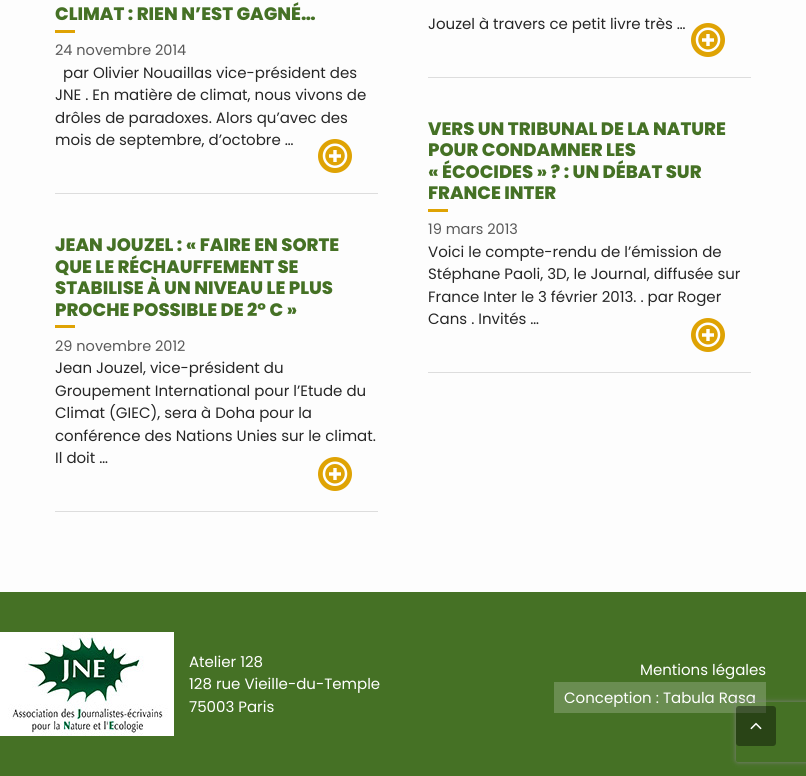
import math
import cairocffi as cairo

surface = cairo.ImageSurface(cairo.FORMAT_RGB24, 806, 776)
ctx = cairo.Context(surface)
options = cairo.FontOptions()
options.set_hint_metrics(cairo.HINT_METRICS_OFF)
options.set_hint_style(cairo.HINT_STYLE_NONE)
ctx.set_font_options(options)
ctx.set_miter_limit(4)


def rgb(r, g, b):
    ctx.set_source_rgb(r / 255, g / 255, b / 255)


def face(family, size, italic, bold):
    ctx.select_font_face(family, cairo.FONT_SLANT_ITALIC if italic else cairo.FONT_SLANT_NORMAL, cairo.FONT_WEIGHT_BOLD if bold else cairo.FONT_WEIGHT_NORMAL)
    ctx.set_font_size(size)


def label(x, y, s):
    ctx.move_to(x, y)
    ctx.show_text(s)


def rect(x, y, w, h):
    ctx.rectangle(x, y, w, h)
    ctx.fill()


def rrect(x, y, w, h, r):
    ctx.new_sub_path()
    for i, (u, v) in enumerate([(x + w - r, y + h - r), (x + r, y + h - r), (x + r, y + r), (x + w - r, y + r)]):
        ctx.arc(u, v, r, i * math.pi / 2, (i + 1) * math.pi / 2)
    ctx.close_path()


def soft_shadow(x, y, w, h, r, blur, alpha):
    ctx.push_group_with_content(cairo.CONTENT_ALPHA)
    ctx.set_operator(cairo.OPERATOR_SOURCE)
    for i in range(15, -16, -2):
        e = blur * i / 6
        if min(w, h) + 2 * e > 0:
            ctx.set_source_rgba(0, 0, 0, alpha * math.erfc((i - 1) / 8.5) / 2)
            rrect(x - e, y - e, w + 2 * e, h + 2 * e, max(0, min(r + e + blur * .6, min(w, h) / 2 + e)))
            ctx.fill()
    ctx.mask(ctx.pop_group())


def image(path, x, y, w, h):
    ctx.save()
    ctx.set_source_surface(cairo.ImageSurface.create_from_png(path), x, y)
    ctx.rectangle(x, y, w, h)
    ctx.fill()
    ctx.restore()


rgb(253, 253, 253)
ctx.paint()
face('Poppins ExtraBold', 18, 0, 0)
rgb(69, 113, 37)
label(55, 20, 'CLIMAT : RIEN N’EST GAGNÉ…')
rgb(223, 163, 4)
rect(55, 30, 20, 3)
face('Poppins', 14.5, 0, 0)
rgb(89, 89, 89)
label(55, 55, '24 novembre 2014')
face('Poppins', 15, 0, 0)
rgb(38, 38, 38)
label(63, 78, 'par Olivier Nouaillas vice-président des')
label(55, 100, 'JNE . En matière de climat, nous vivons de')
label(55, 123, 'drôles de paradoxes. Alors qu’avec des')
label(55, 145, 'mois de septembre, d’octobre …')
image('image0.png', 318, 139, 34, 34)
rgb(221, 221, 221)
rect(55, 193, 323, 1)
rgb(38, 38, 38)
label(428, 29, 'Jouzel à travers ce petit livre très …')
image('image0.png', 691, 23, 34, 34)
rgb(221, 221, 221)
rect(428, 77, 323, 1)
face('Poppins ExtraBold', 18, 0, 0)
rgb(69, 113, 37)
label(55, 251, 'JEAN JOUZEL : « FAIRE EN SORTE')
label(55, 273, 'QUE LE RÉCHAUFFEMENT SE')
label(55, 294, 'STABILISE À UN NIVEAU LE PLUS')
label(55, 316, 'PROCHE POSSIBLE DE 2° C »')
rgb(223, 163, 4)
rect(55, 325, 20, 3)
face('Poppins', 14.5, 0, 0)
rgb(89, 89, 89)
label(55, 351, '29 novembre 2012')
face('Poppins', 15, 0, 0)
rgb(38, 38, 38)
label(55, 373, 'Jean Jouzel, vice-président du')
label(55, 396, 'Groupement International pour l’Etude du')
label(55, 418, 'Climat (GIEC), sera à Doha pour la')
label(55, 441, 'conférence des Nations Unies sur le climat.')
label(55, 463, 'Il doit …')
image('image0.png', 318, 457, 34, 34)
rgb(221, 221, 221)
rect(55, 511, 323, 1)
face('Poppins ExtraBold', 18, 0, 0)
rgb(69, 113, 37)
label(428, 135, 'VERS UN TRIBUNAL DE LA NATURE')
label(428, 156, 'POUR CONDAMNER LES')
label(428, 178, '« ÉCOCIDES » ? : UN DÉBAT SUR')
label(428, 199, 'FRANCE INTER')
rgb(223, 163, 4)
rect(428, 209, 20, 3)
face('Poppins', 14.5, 0, 0)
rgb(89, 89, 89)
label(428, 234, '19 mars 2013')
face('Poppins', 15, 0, 0)
rgb(38, 38, 38)
label(428, 257, 'Voici le compte-rendu de l’émission de')
label(428, 279, 'Stéphane Paoli, 3D, le Journal, diffusée sur')
label(428, 302, 'France Inter le 3 février 2013. . par Roger')
label(428, 324, 'Cans . Invités …')
image('image0.png', 691, 318, 34, 34)
rgb(221, 221, 221)
rect(428, 372, 323, 1)
rgb(69, 113, 37)
rect(0, 592, 806, 184)
image('image1.png', 0, 632, 174, 104)
rgb(255, 255, 255)
label(189, 667, 'Atelier 128')
label(189, 689, '128 rue Vieille-du-Temple')
label(189, 712, '75003 Paris')
label(640, 675, 'Mentions légales')
rgb(106, 141, 81)
rect(554, 682, 212, 31)
rgb(255, 255, 255)
label(564, 703, 'Conception : Tabula Rasa')
ctx.save()
ctx.set_fill_rule(cairo.FILL_RULE_EVEN_ODD)
ctx.new_path()
ctx.move_to(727, 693)
ctx.line_to(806, 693)
ctx.line_to(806, 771)
ctx.line_to(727, 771)
ctx.close_path()
ctx.move_to(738, 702)
ctx.line_to(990, 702)
ctx.curve_to(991, 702, 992, 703, 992, 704)
ctx.line_to(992, 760)
ctx.curve_to(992, 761, 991, 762, 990, 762)
ctx.line_to(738, 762)
ctx.curve_to(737, 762, 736, 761, 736, 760)
ctx.line_to(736, 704)
ctx.curve_to(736, 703, 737, 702, 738, 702)
ctx.close_path()
ctx.clip()
rgb(128, 128, 128)
soft_shadow(736, 702, 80, 60, 2, 2.5, 1)
ctx.restore()
ctx.set_source_rgba(0, 0, 0, 0.4)
rrect(736, 706, 40, 40, 3)
ctx.fill()
image('image2.png', 750, 722, 12, 8)
surface.write_to_png('render.png')
